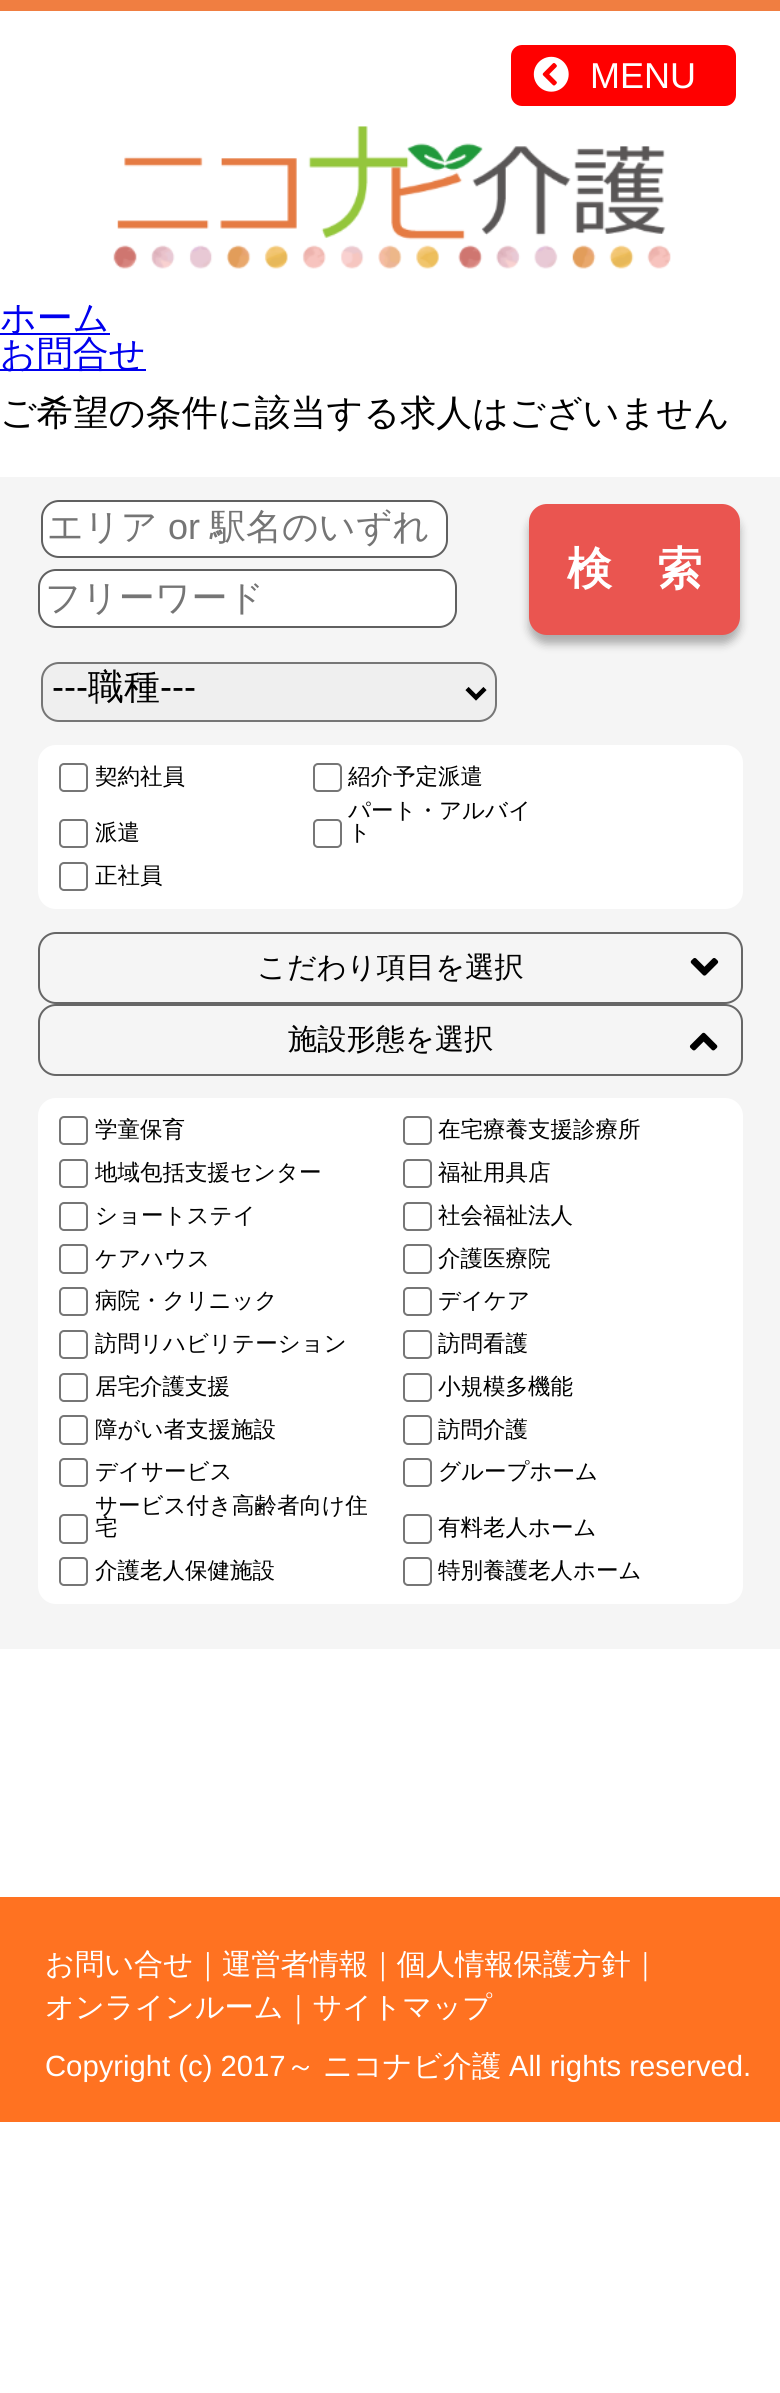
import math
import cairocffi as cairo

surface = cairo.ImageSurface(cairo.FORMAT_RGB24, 780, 2393)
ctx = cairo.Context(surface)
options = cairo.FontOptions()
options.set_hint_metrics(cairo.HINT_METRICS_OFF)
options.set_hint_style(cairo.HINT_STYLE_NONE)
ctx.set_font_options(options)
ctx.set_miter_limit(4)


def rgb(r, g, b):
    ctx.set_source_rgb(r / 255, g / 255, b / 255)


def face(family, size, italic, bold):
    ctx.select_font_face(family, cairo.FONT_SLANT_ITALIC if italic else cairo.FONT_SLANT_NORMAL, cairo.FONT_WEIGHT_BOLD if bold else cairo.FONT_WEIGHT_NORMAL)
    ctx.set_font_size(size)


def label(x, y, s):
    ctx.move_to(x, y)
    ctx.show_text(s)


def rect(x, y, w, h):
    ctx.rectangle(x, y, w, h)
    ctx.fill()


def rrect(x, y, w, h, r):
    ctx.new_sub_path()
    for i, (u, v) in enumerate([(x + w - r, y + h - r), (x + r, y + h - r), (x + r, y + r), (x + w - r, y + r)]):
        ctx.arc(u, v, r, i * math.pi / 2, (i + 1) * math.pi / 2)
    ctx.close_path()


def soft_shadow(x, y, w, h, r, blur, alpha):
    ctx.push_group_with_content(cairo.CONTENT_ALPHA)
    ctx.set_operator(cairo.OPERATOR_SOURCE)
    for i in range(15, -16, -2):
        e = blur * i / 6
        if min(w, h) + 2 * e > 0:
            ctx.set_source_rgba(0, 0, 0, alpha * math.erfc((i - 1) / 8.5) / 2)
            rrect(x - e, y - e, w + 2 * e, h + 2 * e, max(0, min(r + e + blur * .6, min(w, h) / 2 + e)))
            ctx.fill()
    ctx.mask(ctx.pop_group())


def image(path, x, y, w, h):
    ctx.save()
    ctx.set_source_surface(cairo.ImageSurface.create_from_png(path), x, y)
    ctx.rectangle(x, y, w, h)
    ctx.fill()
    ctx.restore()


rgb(255, 255, 255)
ctx.paint()
rgb(240, 126, 65)
rect(0, 0, 780, 11)
rgb(255, 0, 0)
rrect(511, 45, 225, 61, 11)
ctx.fill()
image('image0.png', 533, 56, 36, 36)
face('Liberation Sans', 36, 0, 0)
rgb(255, 255, 255)
label(590, 88, 'MENU')
image('image1.png', 113, 126, 558, 143)
rgb(0, 0, 238)
rect(0, 333, 110, 2)
face('WenQuanYi Zen Hei Medium', 36, 0, 0)
label(0, 330, 'ホーム')
rect(0, 369, 146, 2)
label(0, 366, 'お問合せ')
rgb(0, 0, 0)
label(0, 425, 'ご希望の条件に該当する求人はございません')
rgb(245, 245, 245)
rect(0, 477, 780, 1172)
rgb(255, 255, 255)
rrect(42, 501, 405, 56, 17)
ctx.fill_preserve()
rgb(96, 96, 96)
ctx.stroke()
rgb(117, 117, 117)
label(47, 539, 'エリア')
face('Liberation Sans', 36, 0, 0)
label(168, 539, 'or')
face('WenQuanYi Zen Hei Medium', 36, 0, 0)
label(210, 539, '駅名のいずれ')
rgb(255, 255, 255)
rrect(39, 570, 417, 57, 17)
ctx.fill_preserve()
rgb(96, 96, 96)
ctx.stroke()
rgb(117, 117, 117)
label(45, 610, 'フリーワード')
rgb(239, 239, 239)
rrect(42, 663, 454, 58, 17)
ctx.fill_preserve()
rgb(118, 118, 118)
ctx.stroke()
ctx.new_path()
ctx.move_to(467, 688.5)
ctx.line_to(476, 697.5)
ctx.line_to(485, 688.5)
rgb(0, 0, 0)
ctx.set_line_width(4.5)
ctx.stroke()
face('Liberation Sans', 36, 0, 0)
label(52, 699, '---')
face('WenQuanYi Zen Hei Medium', 36, 0, 0)
label(88, 699, '職種')
face('Liberation Sans', 36, 0, 0)
label(160, 699, '---')
rgb(255, 255, 255)
rrect(38, 745, 705, 164, 18)
ctx.fill()
rrect(60, 764, 27, 27, 4)
rgb(118, 118, 118)
ctx.set_line_width(2)
ctx.stroke()
face('WenQuanYi Zen Hei Medium', 22.5, 0, 0)
rgb(0, 0, 0)
label(95, 784, '契約社員')
rrect(314, 764, 27, 27, 4)
rgb(118, 118, 118)
ctx.stroke()
rgb(0, 0, 0)
label(348, 784, '紹介予定派遣')
rrect(60, 820, 27, 27, 4)
rgb(118, 118, 118)
ctx.stroke()
rgb(0, 0, 0)
label(95, 840, '派遣')
rrect(314, 820, 27, 27, 4)
rgb(118, 118, 118)
ctx.stroke()
rgb(0, 0, 0)
label(348, 818, 'パート・アルバイ')
label(348, 840, 'ト')
rrect(60, 863, 27, 27, 4)
rgb(118, 118, 118)
ctx.stroke()
rgb(0, 0, 0)
label(95, 883, '正社員')
rgb(0, 0, 0)
soft_shadow(529, 513, 211, 131, 18, 4.5, 0.3)
rgb(234, 85, 80)
rrect(529, 504, 211, 131, 18)
ctx.fill()
face('WenQuanYi Zen Hei', 45, 0, 1)
rgb(255, 255, 255)
label(567, 584, '検　索')
rrect(39, 933, 703, 70, 17)
rgb(102, 102, 102)
ctx.stroke()
face('WenQuanYi Zen Hei Medium', 29.25, 0, 0)
rgb(0, 0, 0)
label(257, 977, 'こだわり項目を選択')
image('image2.png', 690, 958, 29, 18)
rrect(39, 1005, 703, 70, 17)
rgb(102, 102, 102)
ctx.stroke()
rgb(0, 0, 0)
label(288, 1049, '施設形態を選択')
image('image3.png', 689, 1032, 29, 19)
rgb(255, 255, 255)
rrect(38, 1098, 705, 506, 18)
ctx.fill()
rrect(60, 1117, 27, 27, 4)
rgb(118, 118, 118)
ctx.stroke()
face('WenQuanYi Zen Hei Medium', 22.5, 0, 0)
rgb(0, 0, 0)
label(95, 1137, '学童保育')
rrect(404, 1117, 27, 27, 4)
rgb(118, 118, 118)
ctx.stroke()
rgb(0, 0, 0)
label(438, 1137, '在宅療養支援診療所')
rrect(60, 1160, 27, 27, 4)
rgb(118, 118, 118)
ctx.stroke()
rgb(0, 0, 0)
label(95, 1180, '地域包括支援センター')
rrect(404, 1160, 27, 27, 4)
rgb(118, 118, 118)
ctx.stroke()
rgb(0, 0, 0)
label(438, 1180, '福祉用具店')
rrect(60, 1203, 27, 27, 4)
rgb(118, 118, 118)
ctx.stroke()
rgb(0, 0, 0)
label(95, 1223, 'ショートステイ')
rrect(404, 1203, 27, 27, 4)
rgb(118, 118, 118)
ctx.stroke()
rgb(0, 0, 0)
label(438, 1223, '社会福祉法人')
rrect(60, 1245, 27, 28, 4)
rgb(118, 118, 118)
ctx.stroke()
rgb(0, 0, 0)
label(95, 1266, 'ケアハウス')
rrect(404, 1245, 27, 28, 4)
rgb(118, 118, 118)
ctx.stroke()
rgb(0, 0, 0)
label(438, 1266, '介護医療院')
rrect(60, 1288, 27, 27, 4)
rgb(118, 118, 118)
ctx.stroke()
rgb(0, 0, 0)
label(95, 1308, '病院・クリニック')
rrect(404, 1288, 27, 27, 4)
rgb(118, 118, 118)
ctx.stroke()
rgb(0, 0, 0)
label(438, 1308, 'デイケア')
rrect(60, 1331, 27, 27, 4)
rgb(118, 118, 118)
ctx.stroke()
rgb(0, 0, 0)
label(95, 1351, '訪問リハビリテーション')
rrect(404, 1331, 27, 27, 4)
rgb(118, 118, 118)
ctx.stroke()
rgb(0, 0, 0)
label(438, 1351, '訪問看護')
rrect(60, 1374, 27, 27, 4)
rgb(118, 118, 118)
ctx.stroke()
rgb(0, 0, 0)
label(95, 1394, '居宅介護支援')
rrect(404, 1374, 27, 27, 4)
rgb(118, 118, 118)
ctx.stroke()
rgb(0, 0, 0)
label(438, 1394, '小規模多機能')
rrect(60, 1416, 27, 28, 4)
rgb(118, 118, 118)
ctx.stroke()
rgb(0, 0, 0)
label(95, 1437, '障がい者支援施設')
rrect(404, 1416, 27, 28, 4)
rgb(118, 118, 118)
ctx.stroke()
rgb(0, 0, 0)
label(438, 1437, '訪問介護')
rrect(60, 1459, 27, 27, 4)
rgb(118, 118, 118)
ctx.stroke()
rgb(0, 0, 0)
label(95, 1479, 'デイサービス')
rrect(404, 1459, 27, 27, 4)
rgb(118, 118, 118)
ctx.stroke()
rgb(0, 0, 0)
label(438, 1479, 'グループホーム')
rrect(60, 1515, 27, 28, 4)
rgb(118, 118, 118)
ctx.stroke()
rgb(0, 0, 0)
label(95, 1513, 'サービス付き高齢者向け住')
label(95, 1535, '宅')
rrect(404, 1515, 27, 28, 4)
rgb(118, 118, 118)
ctx.stroke()
rgb(0, 0, 0)
label(438, 1535, '有料老人ホーム')
rrect(60, 1558, 27, 27, 4)
rgb(118, 118, 118)
ctx.stroke()
rgb(0, 0, 0)
label(95, 1578, '介護老人保健施設')
rrect(404, 1558, 27, 27, 4)
rgb(118, 118, 118)
ctx.stroke()
rgb(0, 0, 0)
label(438, 1578, '特別養護老人ホーム')
rgb(255, 114, 33)
rect(0, 1897, 780, 225)
face('WenQuanYi Zen Hei Medium', 29.25, 0, 0)
rgb(255, 255, 255)
label(45, 1974, 'お問い合せ｜運営者情報｜個人情報保護方針｜')
label(45, 2017, 'オンラインルーム｜サイトマップ')
face('Liberation Sans', 29.25, 0, 0)
label(45, 2076, 'Copyright (c) 2017')
face('WenQuanYi Zen Hei Medium', 29.25, 0, 0)
label(286, 2076, '～')
label(323, 2076, 'ニコナビ介護')
face('Liberation Sans', 29.25, 0, 0)
label(509, 2076, 'All rights reserved.')
surface.write_to_png('render.png')
